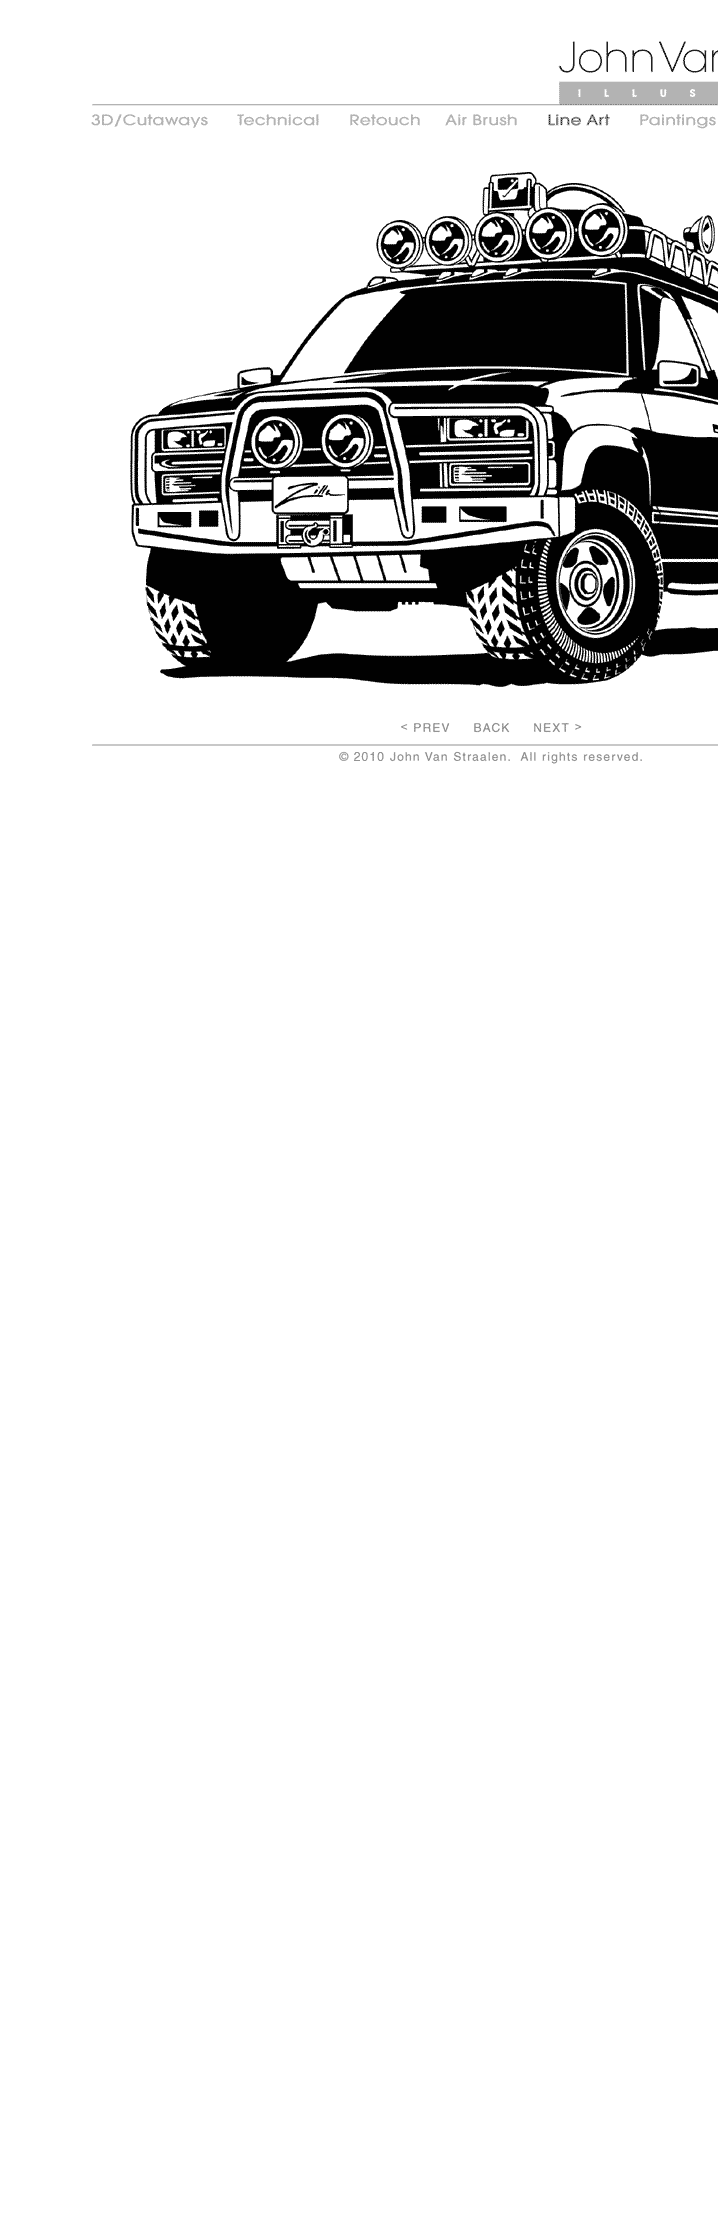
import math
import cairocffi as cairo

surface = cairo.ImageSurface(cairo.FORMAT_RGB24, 718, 2239)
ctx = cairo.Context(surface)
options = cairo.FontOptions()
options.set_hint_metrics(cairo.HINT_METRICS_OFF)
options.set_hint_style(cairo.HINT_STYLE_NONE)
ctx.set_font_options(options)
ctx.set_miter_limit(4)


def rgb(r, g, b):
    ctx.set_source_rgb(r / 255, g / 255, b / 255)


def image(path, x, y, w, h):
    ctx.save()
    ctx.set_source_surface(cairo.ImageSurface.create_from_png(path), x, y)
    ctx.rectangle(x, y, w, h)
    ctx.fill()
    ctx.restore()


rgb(255, 255, 255)
ctx.paint()
image('image0.png', 91, 41, 627, 88)
image('image1.png', 130, 172, 588, 515)
image('image2.png', 92, 722, 626, 42)
surface.write_to_png('render.png')
